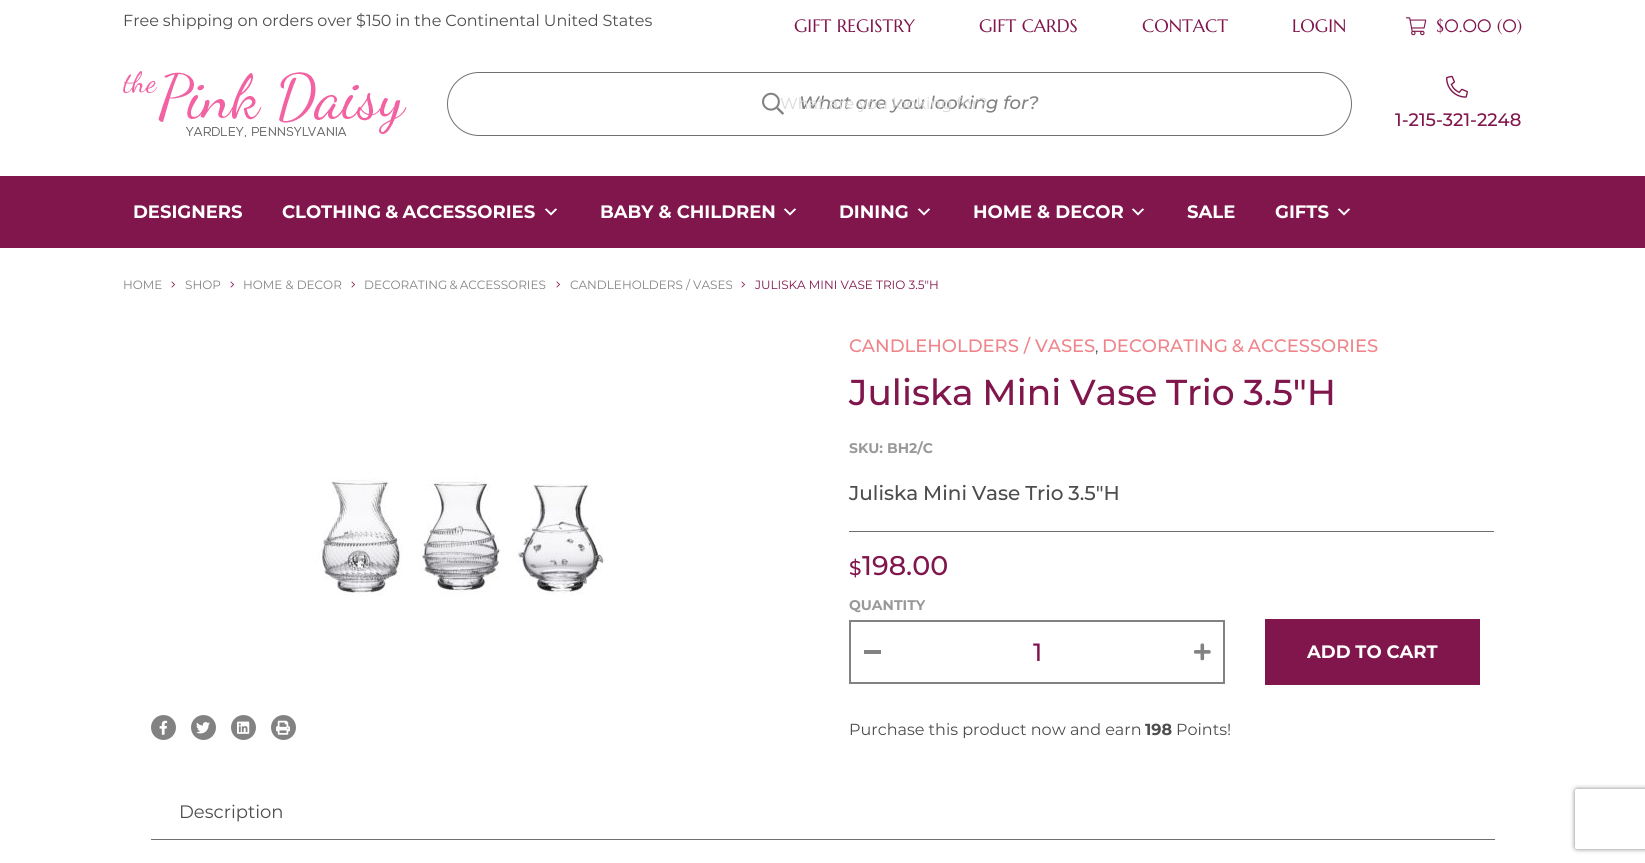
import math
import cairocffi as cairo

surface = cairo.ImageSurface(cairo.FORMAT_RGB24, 1645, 863)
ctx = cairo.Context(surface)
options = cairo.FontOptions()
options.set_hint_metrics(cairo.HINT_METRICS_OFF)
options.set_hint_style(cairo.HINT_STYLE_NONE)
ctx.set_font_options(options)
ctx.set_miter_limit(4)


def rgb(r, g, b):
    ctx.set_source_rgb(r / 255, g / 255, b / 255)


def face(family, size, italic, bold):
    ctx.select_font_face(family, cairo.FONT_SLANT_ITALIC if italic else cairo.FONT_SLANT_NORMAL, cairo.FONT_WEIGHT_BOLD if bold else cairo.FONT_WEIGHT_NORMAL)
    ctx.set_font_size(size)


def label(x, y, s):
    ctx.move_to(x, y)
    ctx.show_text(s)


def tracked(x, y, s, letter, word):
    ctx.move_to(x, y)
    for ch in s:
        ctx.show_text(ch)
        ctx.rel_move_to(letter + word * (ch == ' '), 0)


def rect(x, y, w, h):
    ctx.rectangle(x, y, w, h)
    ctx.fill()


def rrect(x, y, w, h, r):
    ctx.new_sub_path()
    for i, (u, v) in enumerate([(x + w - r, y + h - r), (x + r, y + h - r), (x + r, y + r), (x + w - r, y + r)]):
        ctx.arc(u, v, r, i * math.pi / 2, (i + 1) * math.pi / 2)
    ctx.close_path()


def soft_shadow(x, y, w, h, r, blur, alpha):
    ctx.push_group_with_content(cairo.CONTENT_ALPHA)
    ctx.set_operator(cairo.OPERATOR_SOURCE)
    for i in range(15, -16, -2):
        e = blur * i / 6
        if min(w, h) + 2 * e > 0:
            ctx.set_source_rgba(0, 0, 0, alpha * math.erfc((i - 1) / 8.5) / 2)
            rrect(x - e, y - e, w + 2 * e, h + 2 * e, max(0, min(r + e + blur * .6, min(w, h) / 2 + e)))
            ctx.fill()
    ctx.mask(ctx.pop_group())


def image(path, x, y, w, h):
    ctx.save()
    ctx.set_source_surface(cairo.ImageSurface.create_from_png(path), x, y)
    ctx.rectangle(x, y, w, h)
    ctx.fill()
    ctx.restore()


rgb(255, 255, 255)
ctx.paint()
face('Montserrat', 16, 0, 0)
rgb(77, 77, 77)
tracked(123, 26, 'Free shipping on orders over $150 in the Continental United States', 0, -0.25)
face('Marcellus SC', 18, 0, 0)
rgb(128, 22, 76)
label(794, 32, 'GIFT REGISTRY')
label(979, 32, 'GIFT CARDS')
label(1142, 32, 'CONTACT')
label(1292, 32, 'LOGIN')
image('image0.png', 1406, 17, 21, 19)
label(1436, 32, '$0.00 (0)')
image('image1.png', 123, 71, 284, 66)
rrect(447.5, 72.5, 904, 63, 31.5)
rgb(112, 112, 112)
ctx.set_line_width(1)
ctx.stroke()
image('image2.png', 762, 92, 22, 23)
face('Montserrat Thin', 18, 1, 0)
rgb(130, 130, 130)
label(799, 109, 'What are you looking for?')
face('Montserrat', 16, 0, 0)
rgb(217, 217, 217)
label(780, 109, 'What are you looking for?')
image('image3.png', 1446, 75, 22, 23)
face('Montserrat Medium', 18, 0, 0)
rgb(128, 22, 76)
label(1395, 126, '1-215-321-2248')
rect(0, 176, 1645, 72)
face('Montserrat', 18, 0, 1)
rgb(255, 255, 255)
label(133, 218, 'DESIGNERS')
tracked(282, 218, 'CLOTHING & ACCESSORIES', 0, -1)
image('image4.png', 544, 208, 14, 8)
label(600, 218, 'BABY & CHILDREN')
image('image4.png', 783, 208, 14, 8)
label(839, 218, 'DINING')
image('image4.png', 917, 208, 14, 8)
label(973, 218, 'HOME & DECOR')
image('image4.png', 1131, 208, 14, 8)
label(1187, 218, 'SALE')
label(1275, 218, 'GIFTS')
image('image4.png', 1337, 208, 14, 8)
face('Montserrat', 12, 0, 0)
rgb(130, 130, 130)
label(123, 289, 'HOME')
image('image5.png', 171, 281, 4, 7)
label(185, 289, 'SHOP')
image('image5.png', 230, 281, 4, 7)
label(243, 289, 'HOME & DECOR')
image('image5.png', 351, 281, 4, 7)
tracked(364, 289, 'DECORATING & ACCESSORIES', 0, -1)
image('image5.png', 556, 281, 4, 7)
label(570, 289, 'CANDLEHOLDERS / VASES')
image('image5.png', 741, 281, 4, 7)
rgb(128, 22, 76)
label(755, 289, 'JULISKA MINI VASE TRIO 3.5″H')
image('image6.png', 316, 477, 289, 119)
rgb(130, 130, 130)
ctx.arc(163.5, 727.5, 12.5, 0, 2 * math.pi)
ctx.fill()
image('image7.png', 159, 720, 9, 15)
ctx.arc(203.5, 727.5, 12.5, 0, 2 * math.pi)
ctx.fill()
image('image8.png', 196, 722, 14, 12)
ctx.arc(243.5, 727.5, 12.5, 0, 2 * math.pi)
ctx.fill()
image('image9.png', 237, 721, 13, 13)
ctx.arc(283.5, 727.5, 12.5, 0, 2 * math.pi)
ctx.fill()
image('image10.png', 276, 720, 14, 15)
face('Montserrat Medium', 18, 0, 0)
rgb(239, 132, 138)
label(849, 352, 'CANDLEHOLDERS / VASES')
face('Montserrat', 16, 0, 0)
rgb(77, 77, 77)
label(1095, 352, ',')
face('Montserrat Medium', 18, 0, 0)
rgb(239, 132, 138)
tracked(1102, 352, 'DECORATING & ACCESSORIES', 0, -1)
face('Montserrat Medium', 36, 0, 0)
rgb(128, 22, 76)
tracked(849, 405, 'Juliska Mini Vase Trio 3.5″H', 0, -1)
face('Montserrat', 14, 0, 1)
rgb(153, 153, 153)
label(849, 453, 'SKU: BH2/C')
rgb(112, 112, 112)
rect(849, 531, 645, 1)
face('Montserrat Medium', 20, 0, 0)
rgb(77, 77, 77)
tracked(849, 500, 'Juliska Mini Vase Trio 3.5″H', 0, -0.5)
rgb(128, 22, 76)
label(849, 575, '$')
face('Montserrat Medium', 27, 0, 0)
label(862, 575, '198.00')
face('Montserrat', 14, 0, 1)
rgb(153, 153, 153)
label(849, 610, 'QUANTITY')
ctx.rectangle(850, 621, 374, 62)
rgb(130, 130, 130)
ctx.set_line_width(2)
ctx.stroke()
face('Montserrat Medium', 25, 0, 0)
rgb(128, 22, 76)
label(1033, 661, '1')
image('image11.png', 1194, 643, 17, 18)
rgb(130, 130, 130)
rect(864, 650, 17, 4)
rgb(128, 22, 76)
rect(1265, 619, 215, 66)
face('Montserrat', 18, 0, 1)
rgb(255, 255, 255)
tracked(1307, 658, 'ADD TO CART', 0, -0.25)
face('Montserrat', 16, 0, 0)
rgb(77, 77, 77)
label(849, 735, 'Purchase this product now and earn')
face('Montserrat', 16, 0, 1)
label(1145, 735, '198')
face('Montserrat', 16, 0, 0)
label(1176, 735, 'Points!')
face('Montserrat', 18, 0, 0)
label(179, 818, 'Description')
rgb(112, 112, 112)
rect(151, 839, 1344, 1)
ctx.save()
ctx.set_fill_rule(cairo.FILL_RULE_EVEN_ODD)
ctx.new_path()
ctx.move_to(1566, 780)
ctx.line_to(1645, 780)
ctx.line_to(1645, 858)
ctx.line_to(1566, 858)
ctx.close_path()
ctx.move_to(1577, 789)
ctx.line_to(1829, 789)
ctx.curve_to(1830, 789, 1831, 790, 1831, 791)
ctx.line_to(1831, 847)
ctx.curve_to(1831, 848, 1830, 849, 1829, 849)
ctx.line_to(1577, 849)
ctx.curve_to(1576, 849, 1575, 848, 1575, 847)
ctx.line_to(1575, 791)
ctx.curve_to(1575, 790, 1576, 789, 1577, 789)
ctx.close_path()
ctx.clip()
rgb(128, 128, 128)
soft_shadow(1575, 789, 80, 60, 2, 2.5, 1)
ctx.restore()
surface.write_to_png('render.png')
